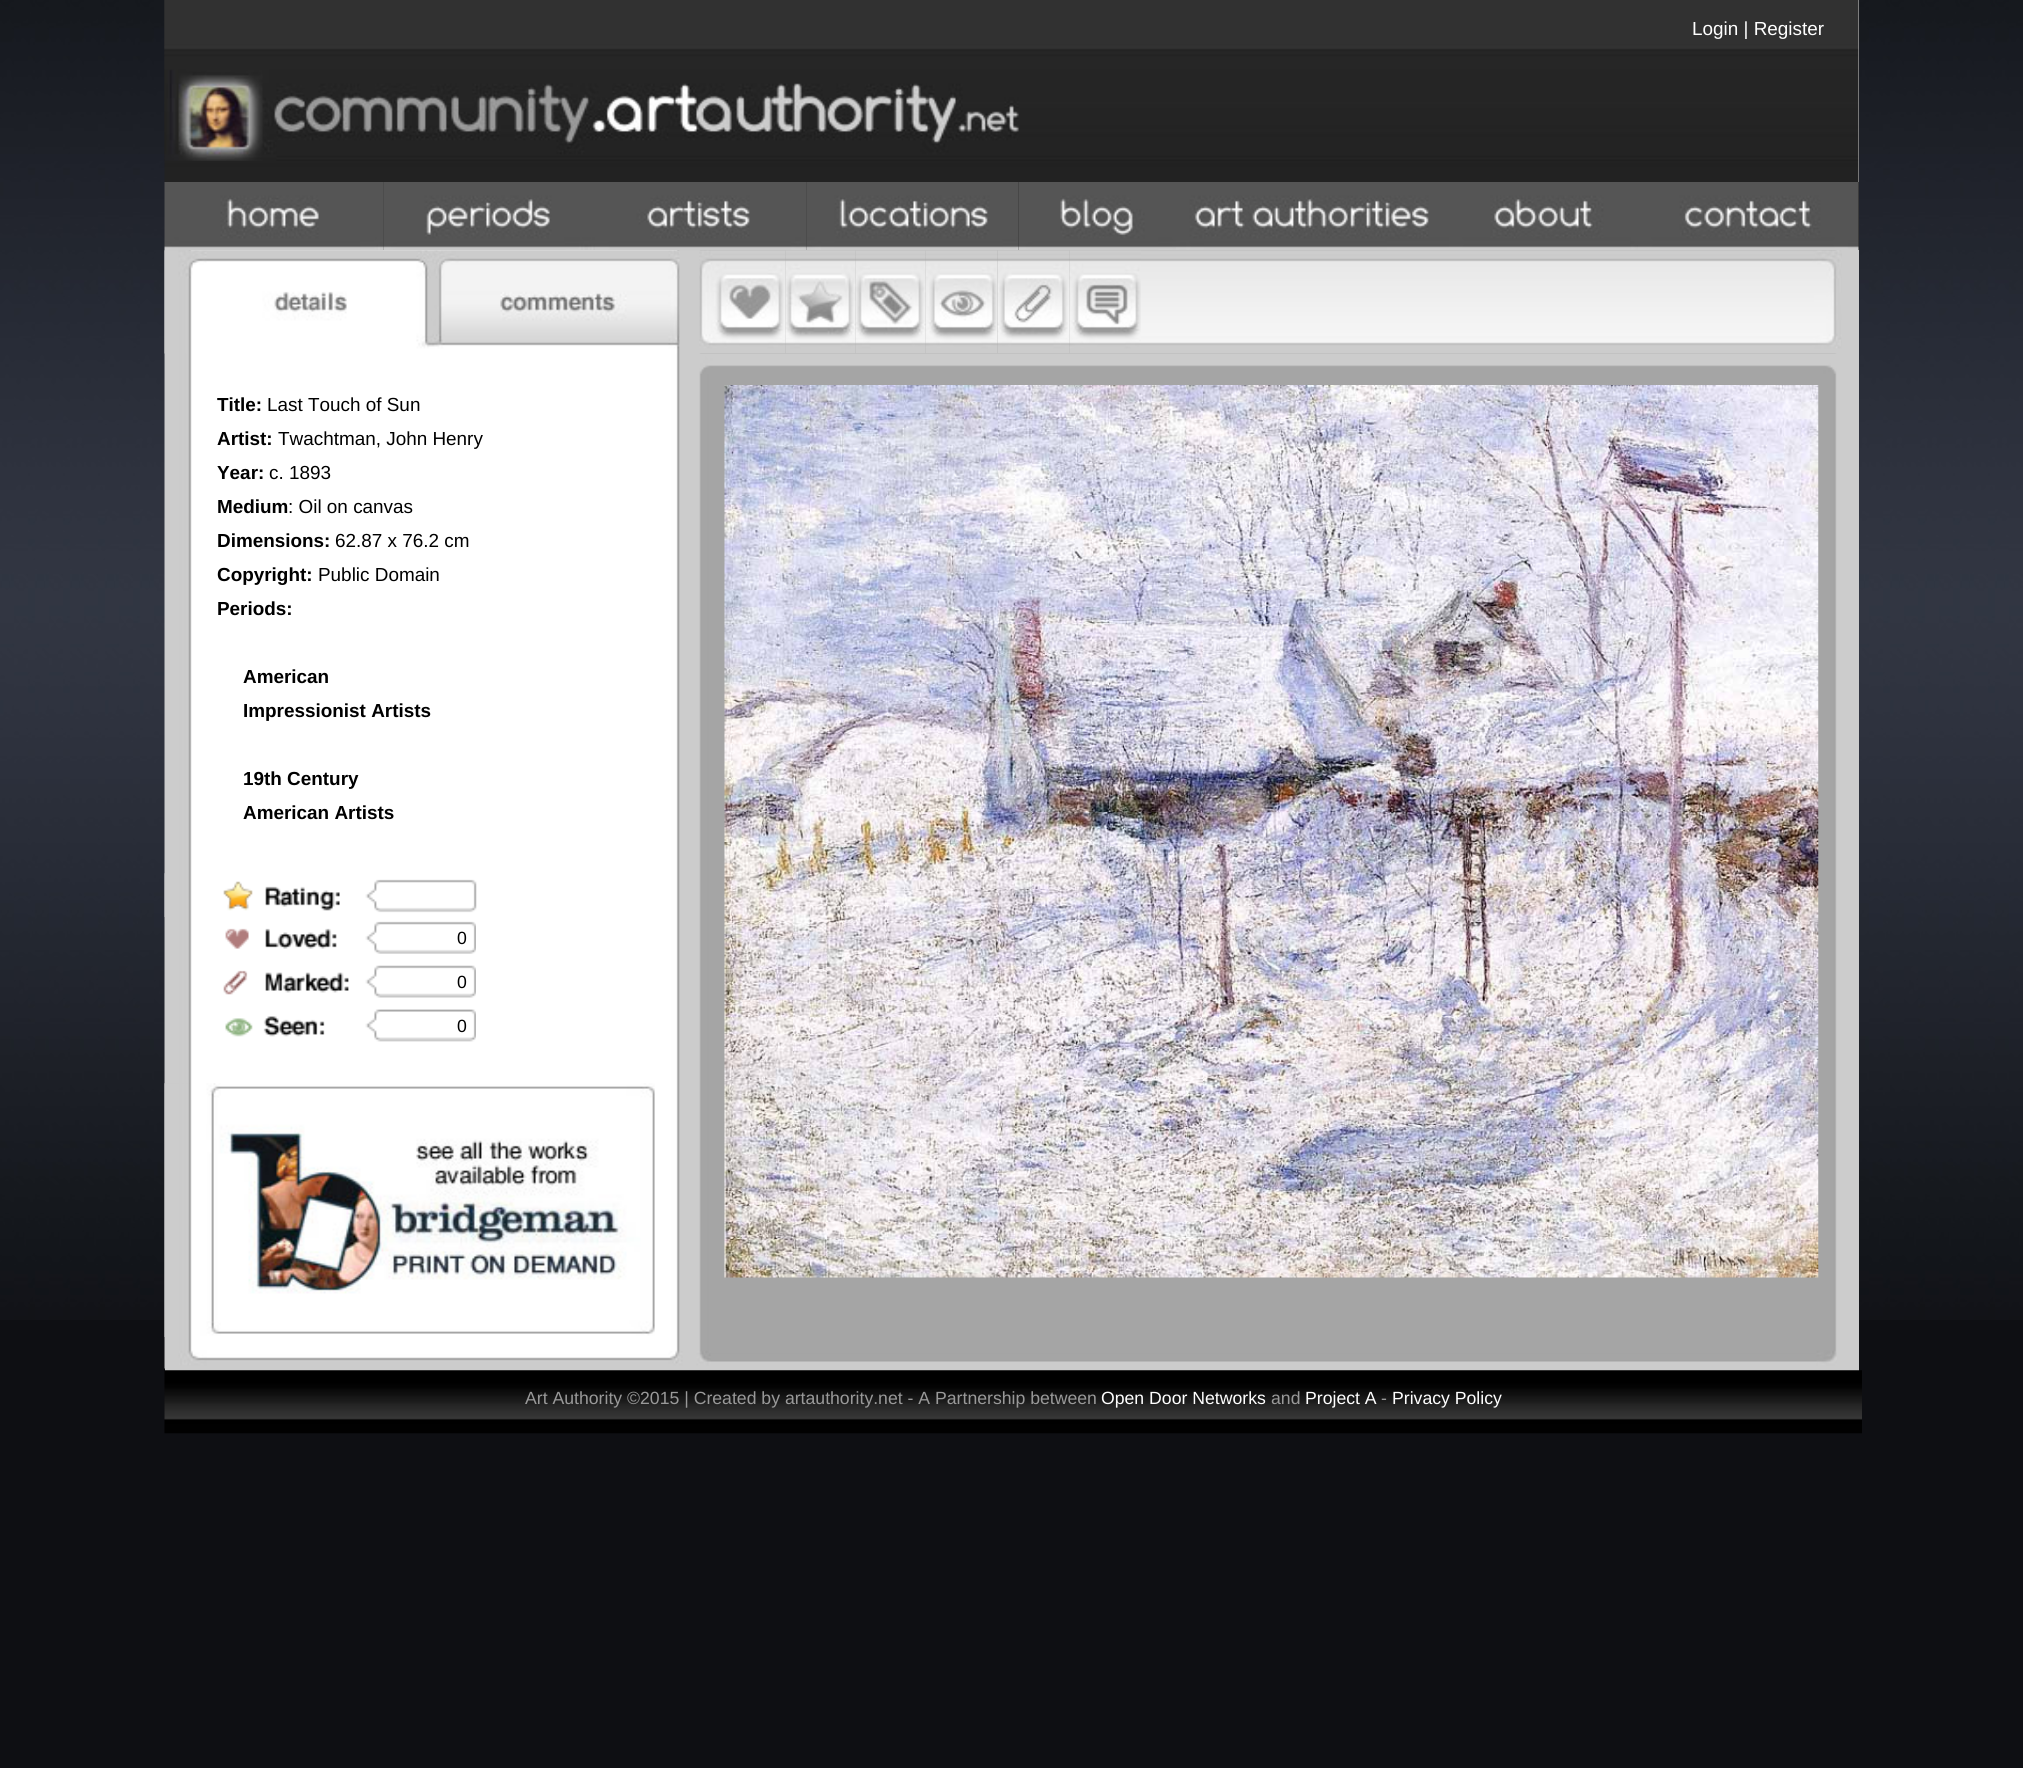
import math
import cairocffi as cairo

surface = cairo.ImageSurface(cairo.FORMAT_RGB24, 2023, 1768)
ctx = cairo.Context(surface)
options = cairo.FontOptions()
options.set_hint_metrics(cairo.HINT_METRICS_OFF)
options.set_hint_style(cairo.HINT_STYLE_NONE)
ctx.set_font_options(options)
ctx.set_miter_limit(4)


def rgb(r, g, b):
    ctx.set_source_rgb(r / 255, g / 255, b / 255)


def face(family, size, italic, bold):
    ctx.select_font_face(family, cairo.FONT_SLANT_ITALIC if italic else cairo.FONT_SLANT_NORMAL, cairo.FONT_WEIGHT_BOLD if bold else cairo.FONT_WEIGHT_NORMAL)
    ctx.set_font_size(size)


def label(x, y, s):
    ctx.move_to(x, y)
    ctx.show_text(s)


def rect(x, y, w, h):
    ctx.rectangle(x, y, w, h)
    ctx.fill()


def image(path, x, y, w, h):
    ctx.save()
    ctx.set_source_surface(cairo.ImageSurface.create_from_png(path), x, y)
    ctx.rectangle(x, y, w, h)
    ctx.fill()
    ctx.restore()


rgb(14, 15, 19)
ctx.paint()
image('image0.png', 0, 0, 2023, 1320)
rgb(204, 204, 204)
rect(165, 0, 1694, 1371)
image('image1.png', 164, 0, 1695, 182)
image('image2.png', 164, 0, 855, 161)
face('Liberation Sans', 18.9, 0, 0)
rgb(255, 255, 255)
label(1692, 35, 'Login | Register')
rgb(35, 35, 35)
rect(383, 182, 1476, 68)
image('image11.png', 164, 250, 1673, 1087)
image('image12.png', 164, 250, 516, 104)
image('image3.png', 164, 182, 220, 69)
image('image4.png', 383, 182, 212, 68)
image('image5.png', 595, 182, 212, 68)
image('image6.png', 806, 182, 213, 68)
image('image7.png', 1018, 182, 158, 68)
image('image8.png', 1176, 182, 273, 68)
image('image9.png', 1449, 182, 189, 68)
image('image10.png', 1638, 182, 221, 68)
face('Liberation Sans', 18.9, 0, 1)
rgb(0, 0, 0)
label(217, 411, 'Title:')
face('Liberation Sans', 18.9, 0, 0)
label(267, 411, 'Last Touch of Sun')
face('Liberation Sans', 18.9, 0, 1)
label(217, 445, 'Artist:')
face('Liberation Sans', 18.9, 0, 0)
label(278, 445, 'Twachtman, John Henry')
face('Liberation Sans', 18.9, 0, 1)
label(217, 479, 'Year:')
face('Liberation Sans', 18.9, 0, 0)
label(269, 479, 'c. 1893')
face('Liberation Sans', 18.9, 0, 1)
label(217, 513, 'Medium')
face('Liberation Sans', 18.9, 0, 0)
label(288, 513, ': Oil on canvas')
face('Liberation Sans', 18.9, 0, 1)
label(217, 547, 'Dimensions:')
face('Liberation Sans', 18.9, 0, 0)
label(335, 547, '62.87 x 76.2 cm')
face('Liberation Sans', 18.9, 0, 1)
label(217, 581, 'Copyright:')
face('Liberation Sans', 18.9, 0, 0)
label(318, 581, 'Public Domain')
face('Liberation Sans', 18.9, 0, 1)
label(217, 615, 'Periods:')
label(243, 683, 'American')
label(243, 717, 'Impressionist Artists')
label(243, 785, '19th Century')
label(243, 819, 'American Artists')
image('image13.png', 164, 873, 313, 44)
image('image14.png', 225, 921, 251, 33)
face('Liberation Sans', 17.65, 0, 0)
label(457, 944, '0')
image('image15.png', 223, 965, 253, 33)
label(457, 988, '0')
image('image16.png', 225, 1009, 251, 33)
label(457, 1032, '0')
image('image17.png', 164, 1083, 491, 254)
image('image18.png', 699, 250, 87, 104)
image('image19.png', 785, 250, 71, 104)
image('image20.png', 855, 250, 71, 104)
image('image21.png', 925, 250, 73, 104)
image('image22.png', 997, 250, 73, 104)
image('image23.png', 1069, 250, 72, 104)
image('image24.png', 1141, 250, 701, 104)
image('image25.png', 699, 353, 1138, 21)
image('image26.png', 724, 385, 1095, 893)
image('image27.png', 164, 1337, 1673, 32)
image('image28.png', 164, 1370, 1698, 64)
rgb(153, 153, 153)
label(525, 1404, 'Art Authority ©2015 | Created by artauthority.net - A Partnership between')
rgb(255, 255, 255)
label(1101, 1404, 'Open Door Networks')
rgb(153, 153, 153)
label(1271, 1404, 'and')
rgb(255, 255, 255)
label(1305, 1404, 'Project A')
rgb(153, 153, 153)
label(1381, 1404, '-')
rgb(255, 255, 255)
label(1392, 1404, 'Privacy Policy')
surface.write_to_png('render.png')
